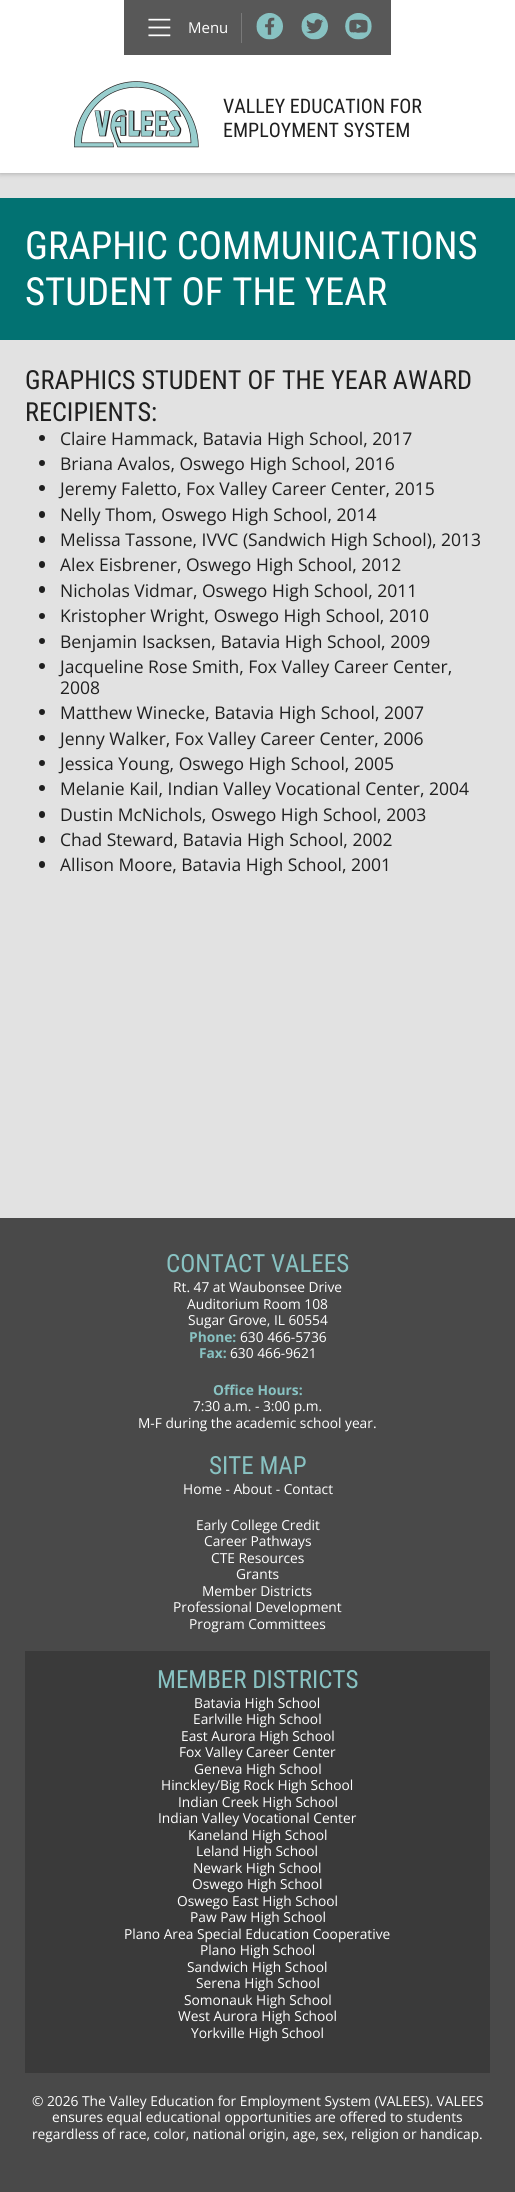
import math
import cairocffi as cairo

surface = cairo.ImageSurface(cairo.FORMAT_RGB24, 515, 2192)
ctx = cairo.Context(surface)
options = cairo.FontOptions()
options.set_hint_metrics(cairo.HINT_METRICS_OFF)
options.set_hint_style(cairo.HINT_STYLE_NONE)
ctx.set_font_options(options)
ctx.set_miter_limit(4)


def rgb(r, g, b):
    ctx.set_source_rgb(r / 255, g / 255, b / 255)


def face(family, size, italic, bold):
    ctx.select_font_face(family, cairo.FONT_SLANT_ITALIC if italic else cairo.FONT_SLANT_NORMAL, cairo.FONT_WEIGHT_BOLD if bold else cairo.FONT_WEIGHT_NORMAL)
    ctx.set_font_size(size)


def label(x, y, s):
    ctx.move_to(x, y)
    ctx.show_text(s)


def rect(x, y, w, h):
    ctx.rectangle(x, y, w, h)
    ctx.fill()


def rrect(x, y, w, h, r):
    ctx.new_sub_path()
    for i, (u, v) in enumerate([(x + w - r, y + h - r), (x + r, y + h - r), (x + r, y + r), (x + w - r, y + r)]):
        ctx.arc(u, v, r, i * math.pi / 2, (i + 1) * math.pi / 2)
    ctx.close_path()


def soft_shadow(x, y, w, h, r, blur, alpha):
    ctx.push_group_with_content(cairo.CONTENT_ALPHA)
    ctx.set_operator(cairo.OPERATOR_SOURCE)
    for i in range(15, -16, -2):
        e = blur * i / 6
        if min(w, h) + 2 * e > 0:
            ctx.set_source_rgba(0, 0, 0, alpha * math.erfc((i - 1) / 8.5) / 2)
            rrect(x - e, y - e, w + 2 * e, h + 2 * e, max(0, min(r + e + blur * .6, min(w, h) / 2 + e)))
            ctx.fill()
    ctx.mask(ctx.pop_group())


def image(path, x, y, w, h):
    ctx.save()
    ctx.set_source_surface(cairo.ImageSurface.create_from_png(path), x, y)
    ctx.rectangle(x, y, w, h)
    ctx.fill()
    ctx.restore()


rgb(73, 73, 73)
ctx.paint()
rgb(226, 226, 226)
rect(0, 173, 515, 1045)
rgb(0, 0, 0)
soft_shadow(0, 0, 515, 173, 0, 3, 0.3)
rgb(255, 255, 255)
rect(0, 0, 515, 173)
rgb(88, 88, 88)
rect(124, 0, 267, 55)
image('image0.png', 148, 18, 23, 19)
face('Open Sans', 15, 0, 0)
rgb(255, 255, 255)
label(188, 33, 'Menu')
rgb(121, 121, 121)
rect(241, 13, 1, 30)
image('image1.png', 256, 13, 27, 27)
image('image2.png', 301, 13, 27, 27)
image('image3.png', 345, 13, 27, 27)
image('image4.png', 74, 81, 125, 67)
face('Roboto Condensed', 20, 0, 0)
rgb(31, 31, 31)
label(223, 113, 'VALLEY EDUCATION FOR')
label(223, 137, 'EMPLOYMENT SYSTEM')
rgb(2, 114, 114)
rect(0, 198, 515, 142)
face('Roboto Condensed', 38.75, 0, 0)
rgb(255, 255, 255)
label(25, 259, 'GRAPHIC COMMUNICATIONS')
label(25, 305, 'STUDENT OF THE YEAR')
face('Roboto Condensed', 26.25, 0, 0)
rgb(31, 31, 31)
label(25, 389, 'GRAPHICS STUDENT OF THE YEAR AWARD')
label(25, 421, 'RECIPIENTS:')
ctx.new_path()
ctx.arc(42, 438, 3, 0, 2 * math.pi)
ctx.fill()
face('Open Sans', 17.5, 0, 0)
label(60, 445, 'Claire Hammack, Batavia High School, 2017')
ctx.new_path()
ctx.arc(42, 463, 3, 0, 2 * math.pi)
ctx.fill()
label(60, 470, 'Briana Avalos, Oswego High School, 2016')
ctx.new_path()
ctx.arc(42, 488, 3, 0, 2 * math.pi)
ctx.fill()
label(60, 495, 'Jeremy Faletto, Fox Valley Career Center, 2015')
rrect(39, 511, 6, 7, 3)
ctx.fill()
label(60, 521, 'Nelly Thom, Oswego High School, 2014')
rrect(39, 536, 6, 7, 3)
ctx.fill()
label(60, 546, 'Melissa Tassone, IVVC (Sandwich High School), 2013')
rrect(39, 561, 6, 7, 3)
ctx.fill()
label(60, 571, 'Alex Eisbrener, Oswego High School, 2012')
rrect(39, 586, 6, 7, 3)
ctx.fill()
label(60, 597, 'Nicholas Vidmar, Oswego High School, 2011')
ctx.new_path()
ctx.arc(42, 616, 3, 0, 2 * math.pi)
ctx.fill()
label(60, 622, 'Kristopher Wright, Oswego High School, 2010')
ctx.new_path()
ctx.arc(42, 641, 3, 0, 2 * math.pi)
ctx.fill()
label(60, 648, 'Benjamin Isacksen, Batavia High School, 2009')
ctx.new_path()
ctx.arc(42, 666, 3, 0, 2 * math.pi)
ctx.fill()
label(60, 673, 'Jacqueline Rose Smith, Fox Valley Career Center,')
label(60, 694, '2008')
ctx.new_path()
ctx.arc(42, 712, 3, 0, 2 * math.pi)
ctx.fill()
label(60, 719, 'Matthew Winecke, Batavia High School, 2007')
ctx.new_path()
ctx.arc(42, 738, 3, 0, 2 * math.pi)
ctx.fill()
label(60, 745, 'Jenny Walker, Fox Valley Career Center, 2006')
ctx.new_path()
ctx.arc(42, 763, 3, 0, 2 * math.pi)
ctx.fill()
label(60, 770, 'Jessica Young, Oswego High School, 2005')
ctx.new_path()
ctx.arc(42, 788, 3, 0, 2 * math.pi)
ctx.fill()
label(60, 795, 'Melanie Kail, Indian Valley Vocational Center, 2004')
rrect(39, 811, 6, 7, 3)
ctx.fill()
label(60, 821, 'Dustin McNichols, Oswego High School, 2003')
rrect(39, 836, 6, 7, 3)
ctx.fill()
label(60, 846, 'Chad Steward, Batavia High School, 2002')
rrect(39, 861, 6, 7, 3)
ctx.fill()
label(60, 871, 'Allison Moore, Batavia High School, 2001')
face('Roboto Condensed', 25, 0, 0)
rgb(136, 194, 194)
label(166, 1272, 'CONTACT VALEES')
face('Open Sans', 13.75, 0, 0)
rgb(255, 255, 255)
label(173, 1292, 'Rt. 47 at Waubonsee Drive')
label(187, 1309, 'Auditorium Room 108')
label(188, 1325, 'Sugar Grove, IL 60554')
face('Open Sans', 13.75, 0, 1)
rgb(136, 194, 194)
label(189, 1342, 'Phone:')
face('Open Sans', 13.75, 0, 0)
rgb(255, 255, 255)
label(240, 1342, '630 466-5736')
face('Open Sans', 13.75, 0, 1)
rgb(136, 194, 194)
label(199, 1358, 'Fax:')
face('Open Sans', 13.75, 0, 0)
rgb(255, 255, 255)
label(230, 1358, '630 466-9621')
face('Open Sans', 13.75, 0, 1)
rgb(136, 194, 194)
label(213, 1395, 'Office Hours:')
face('Open Sans', 13.75, 0, 0)
rgb(255, 255, 255)
label(193, 1411, '7:30 a.m. - 3:00 p.m.')
label(138, 1428, 'M-F during the academic school year.')
face('Roboto Condensed', 25, 0, 0)
rgb(136, 194, 194)
label(209, 1474, 'SITE MAP')
face('Open Sans', 13.75, 0, 0)
rgb(255, 255, 255)
label(183, 1494, 'Home - About - Contact')
label(196, 1530, 'Early College Credit')
label(204, 1546, 'Career Pathways')
label(211, 1563, 'CTE Resources')
label(236, 1579, 'Grants')
label(202, 1596, 'Member Districts')
label(173, 1612, 'Professional Development')
label(189, 1629, 'Program Committees')
rgb(58, 58, 58)
rect(25, 1651, 465, 422)
face('Roboto Condensed', 25, 0, 0)
rgb(136, 194, 194)
label(157, 1688, 'MEMBER DISTRICTS')
face('Open Sans', 13.75, 0, 0)
rgb(255, 255, 255)
label(194, 1708, 'Batavia High School')
label(193, 1724, 'Earlville High School')
label(181, 1741, 'East Aurora High School')
label(179, 1757, 'Fox Valley Career Center')
label(194, 1774, 'Geneva High School')
label(161, 1790, 'Hinckley/Big Rock High School')
label(178, 1807, 'Indian Creek High School')
label(158, 1823, 'Indian Valley Vocational Center')
label(188, 1840, 'Kaneland High School')
label(196, 1856, 'Leland High School')
label(193, 1873, 'Newark High School')
label(192, 1889, 'Oswego High School')
label(177, 1906, 'Oswego East High School')
label(190, 1922, 'Paw Paw High School')
label(124, 1939, 'Plano Area Special Education Cooperative')
label(200, 1955, 'Plano High School')
label(187, 1972, 'Sandwich High School')
label(196, 1988, 'Serena High School')
label(184, 2005, 'Somonauk High School')
label(178, 2021, 'West Aurora High School')
label(191, 2038, 'Yorkville High School')
label(32, 2106, '© 2026 The Valley Education for Employment System (VALEES). VALEES')
label(52, 2122, 'ensures equal educational opportunities are offered to students')
label(32, 2139, 'regardless of race, color, national origin, age, sex, religion or handicap.')
surface.write_to_png('render.png')
